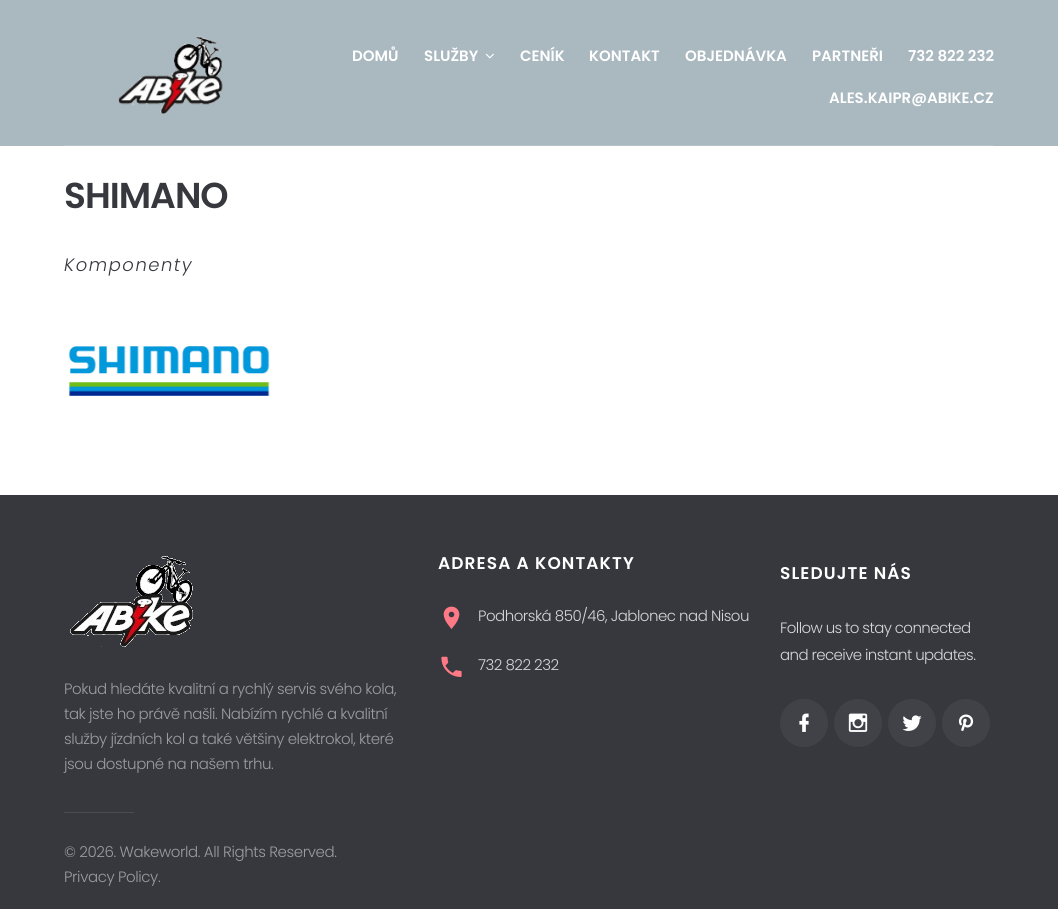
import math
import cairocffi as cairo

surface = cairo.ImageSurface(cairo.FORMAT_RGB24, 1058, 909)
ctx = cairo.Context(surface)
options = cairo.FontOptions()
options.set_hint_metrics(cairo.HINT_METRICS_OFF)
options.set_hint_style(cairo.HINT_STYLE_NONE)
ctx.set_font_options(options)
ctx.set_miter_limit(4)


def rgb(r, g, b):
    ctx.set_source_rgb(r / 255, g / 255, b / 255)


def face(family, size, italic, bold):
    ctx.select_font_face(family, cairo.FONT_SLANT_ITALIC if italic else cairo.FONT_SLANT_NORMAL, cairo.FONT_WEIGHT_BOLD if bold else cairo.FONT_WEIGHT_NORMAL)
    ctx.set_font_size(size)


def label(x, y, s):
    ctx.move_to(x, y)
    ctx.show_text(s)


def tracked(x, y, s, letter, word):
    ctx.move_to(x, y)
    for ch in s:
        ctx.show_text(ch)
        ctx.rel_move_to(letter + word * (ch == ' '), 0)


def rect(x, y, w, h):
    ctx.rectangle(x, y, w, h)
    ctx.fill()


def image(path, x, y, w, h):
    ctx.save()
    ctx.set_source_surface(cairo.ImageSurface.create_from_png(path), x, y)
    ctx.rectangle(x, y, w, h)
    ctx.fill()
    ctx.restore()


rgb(255, 255, 255)
ctx.paint()
rgb(170, 184, 192)
rect(0, 0, 1058, 146)
rgb(183, 195, 201)
rect(64, 145, 930, 1)
image('image0.png', 118, 36, 105, 78)
face('Poppins SemiBold', 15, 0, 0)
rgb(255, 255, 255)
label(352, 61, 'DOMŮ')
label(424, 61, 'SLUŽBY')
image('image1.png', 485, 53, 9, 6)
label(520, 61, 'CENÍK')
label(589, 61, 'KONTAKT')
label(685, 61, 'OBJEDNÁVKA')
label(812, 61, 'PARTNEŘI')
label(908, 61, '732 822 232')
label(829, 103, 'ALES.KAIPR@ABIKE.CZ')
face('Poppins SemiBold', 36, 0, 0)
rgb(55, 56, 62)
tracked(64, 208, 'SHIMANO', -1, 0)
face('Poppins Light', 18, 1, 0)
tracked(64, 271, 'Komponenty', 1.5, 0)
image('image2.png', 69, 346, 201, 50)
rect(0, 495, 1058, 414)
face('Poppins SemiBold', 17, 0, 0)
rgb(255, 255, 255)
tracked(438, 569, 'ADRESA A KONTAKTY', 1.1, 0)
image('image3.png', 443, 606, 17, 23)
face('Poppins Light', 15, 0, 0)
rgb(215, 215, 216)
tracked(478, 621, 'Podhorská 850/46, Jablonec nad Nisou', -0.5, 0)
image('image4.png', 441, 656, 21, 21)
tracked(478, 670, '732 822 232', -0.5, 0)
face('Poppins SemiBold', 17, 0, 0)
rgb(255, 255, 255)
tracked(780, 579, 'SLEDUJTE NÁS', 1.1, 0)
face('Poppins Light', 15, 0, 0)
rgb(215, 215, 216)
tracked(780, 633, 'Follow us to stay connected', -0.6, 0)
tracked(780, 660, 'and receive instant updates.', -0.6, 0)
rgb(65, 66, 72)
ctx.new_path()
ctx.arc(804, 723, 24, 0, 2 * math.pi)
ctx.fill()
image('image5.png', 799, 713, 10, 19)
ctx.arc(858, 723, 24, 0, 2 * math.pi)
ctx.fill()
image('image6.png', 848, 713, 20, 19)
ctx.arc(912, 723, 24, 0, 2 * math.pi)
ctx.fill()
image('image7.png', 902, 715, 20, 16)
ctx.arc(966, 723, 24, 0, 2 * math.pi)
ctx.fill()
image('image8.png', 958, 714, 16, 17)
image('image9.png', 70, 556, 123, 91)
rgb(155, 156, 159)
tracked(64, 694, 'Pokud hledáte kvalitní a rychlý servis svého kola,', -0.45, 0)
tracked(64, 719, 'tak jste ho právě našli. Nabízím rychlé a kvalitní', -0.45, 0)
tracked(64, 744, 'služby jízdních kol a také většiny elektrokol, které', -0.45, 0)
tracked(64, 769, 'jsou dostupné na našem trhu.', -0.45, 0)
rgb(75, 76, 81)
rect(64, 812, 70, 1)
rgb(155, 156, 159)
tracked(64, 857, '© 2026. Wakeworld. All Rights Reserved.', -0.4, 0)
tracked(64, 882, 'Privacy Policy.', -0.4, 0)
surface.write_to_png('render.png')
